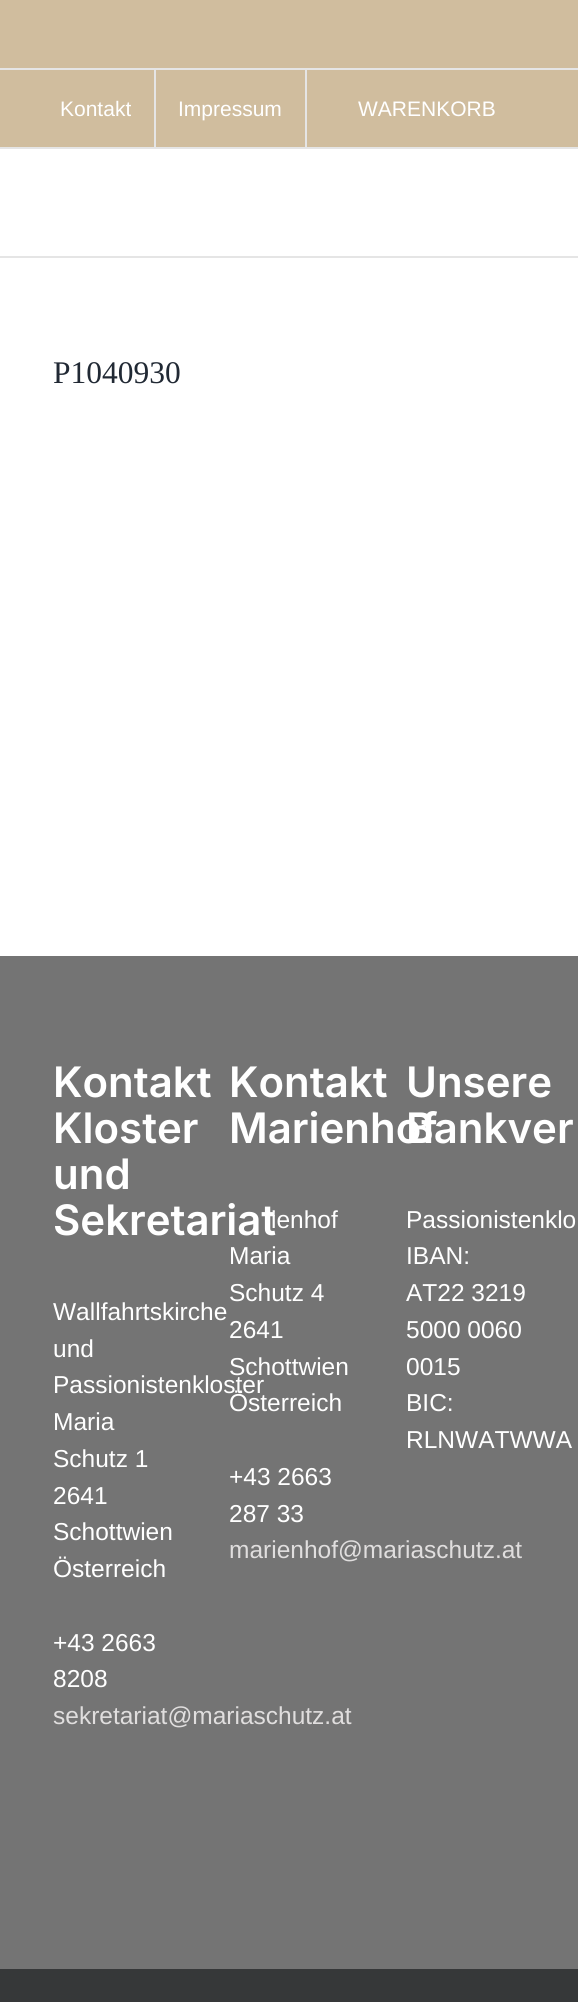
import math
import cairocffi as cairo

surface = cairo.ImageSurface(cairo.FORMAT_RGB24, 578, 2002)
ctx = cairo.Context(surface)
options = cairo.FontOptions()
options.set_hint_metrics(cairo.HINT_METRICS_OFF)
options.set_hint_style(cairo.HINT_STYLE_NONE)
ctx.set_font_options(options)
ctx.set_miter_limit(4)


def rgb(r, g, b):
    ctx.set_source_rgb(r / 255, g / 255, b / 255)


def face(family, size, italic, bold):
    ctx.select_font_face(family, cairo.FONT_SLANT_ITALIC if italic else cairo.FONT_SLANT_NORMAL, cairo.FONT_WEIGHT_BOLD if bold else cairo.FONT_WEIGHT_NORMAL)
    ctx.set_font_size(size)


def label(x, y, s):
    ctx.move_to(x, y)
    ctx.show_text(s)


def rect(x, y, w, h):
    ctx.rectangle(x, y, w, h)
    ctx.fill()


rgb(255, 255, 255)
ctx.paint()
rgb(208, 189, 158)
rect(0, 0, 578, 147)
rgb(229, 229, 229)
rect(0, 147, 578, 2)
rect(0, 68, 578, 2)
face('Liberation Sans', 21, 0, 0)
rgb(255, 255, 255)
label(60, 116, 'Kontakt')
rgb(229, 229, 229)
rect(154, 70, 2, 77)
rgb(255, 255, 255)
label(178, 116, 'Impressum')
rgb(229, 229, 229)
rect(305, 70, 2, 77)
rgb(255, 255, 255)
label(358, 116, 'WARENKORB')
rgb(229, 229, 229)
rect(0, 256, 578, 2)
face('Liberation Serif', 31.5, 0, 0)
rgb(33, 41, 52)
label(53, 383, 'P1040930')
rgb(116, 116, 116)
rect(0, 956, 578, 1013)
face('Inter SemiBold', 42, 0, 0)
rgb(255, 255, 255)
label(53, 1097, 'Kontakt')
label(53, 1143, 'Kloster')
label(53, 1189, 'und')
label(53, 1235, 'Sekretariat')
face('Liberation Sans', 24.5, 0, 0)
label(53, 1320, 'Wallfahrtskirche')
label(53, 1357, 'und')
label(53, 1393, 'Passionistenkloster')
label(53, 1430, 'Maria')
label(53, 1467, 'Schutz 1')
label(53, 1504, '2641')
label(53, 1540, 'Schottwien')
label(53, 1577, 'Österreich')
label(53, 1651, '+43 2663')
label(53, 1687, '8208')
rgb(224, 222, 222)
label(53, 1724, 'sekretariat@mariaschutz.at')
face('Inter SemiBold', 42, 0, 0)
rgb(255, 255, 255)
label(229, 1097, 'Kontakt')
label(229, 1143, 'Marienhof')
face('Liberation Sans', 24.5, 0, 0)
label(271, 1228, 'ienhof')
label(229, 1264, 'Maria')
label(229, 1301, 'Schutz 4')
label(229, 1338, '2641')
label(229, 1375, 'Schottwien')
label(229, 1411, 'Österreich')
label(229, 1485, '+43 2663')
label(229, 1522, '287 33')
rgb(224, 222, 222)
label(229, 1558, 'marienhof@mariaschutz.at')
face('Inter SemiBold', 42, 0, 0)
rgb(255, 255, 255)
label(406, 1097, 'Unsere')
label(406, 1143, 'Bankver')
face('Liberation Sans', 24.5, 0, 0)
label(406, 1228, 'Passionistenklo')
label(406, 1264, 'IBAN:')
label(406, 1301, 'AT22 3219')
label(406, 1338, '5000 0060')
label(406, 1375, '0015')
label(406, 1411, 'BIC:')
label(406, 1448, 'RLNWATWWA')
rgb(54, 56, 57)
rect(0, 1969, 578, 33)
surface.write_to_png('render.png')
